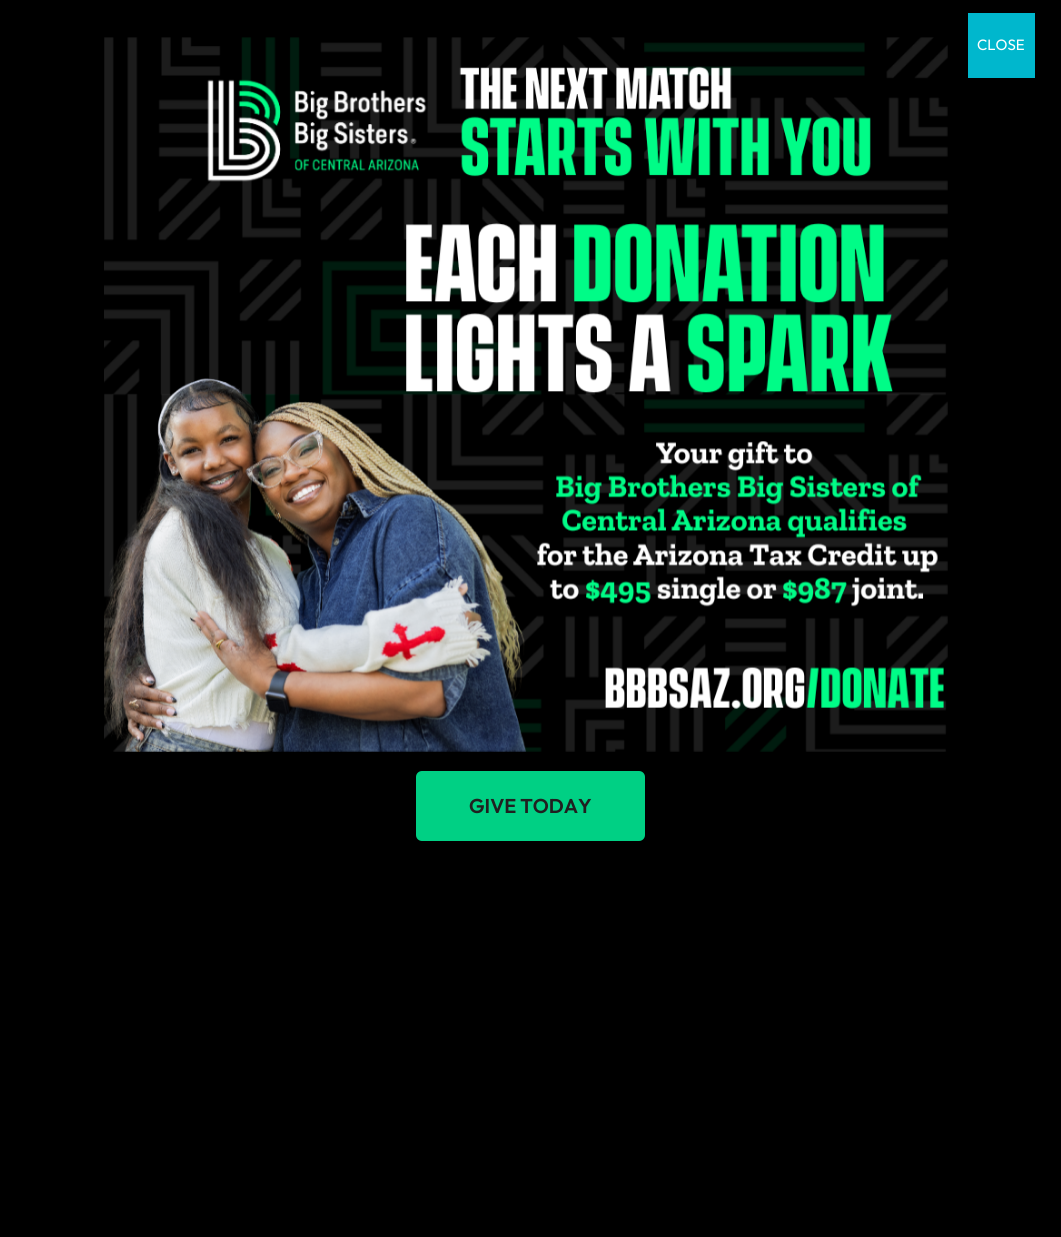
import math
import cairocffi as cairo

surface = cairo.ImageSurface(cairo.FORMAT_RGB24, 1061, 1237)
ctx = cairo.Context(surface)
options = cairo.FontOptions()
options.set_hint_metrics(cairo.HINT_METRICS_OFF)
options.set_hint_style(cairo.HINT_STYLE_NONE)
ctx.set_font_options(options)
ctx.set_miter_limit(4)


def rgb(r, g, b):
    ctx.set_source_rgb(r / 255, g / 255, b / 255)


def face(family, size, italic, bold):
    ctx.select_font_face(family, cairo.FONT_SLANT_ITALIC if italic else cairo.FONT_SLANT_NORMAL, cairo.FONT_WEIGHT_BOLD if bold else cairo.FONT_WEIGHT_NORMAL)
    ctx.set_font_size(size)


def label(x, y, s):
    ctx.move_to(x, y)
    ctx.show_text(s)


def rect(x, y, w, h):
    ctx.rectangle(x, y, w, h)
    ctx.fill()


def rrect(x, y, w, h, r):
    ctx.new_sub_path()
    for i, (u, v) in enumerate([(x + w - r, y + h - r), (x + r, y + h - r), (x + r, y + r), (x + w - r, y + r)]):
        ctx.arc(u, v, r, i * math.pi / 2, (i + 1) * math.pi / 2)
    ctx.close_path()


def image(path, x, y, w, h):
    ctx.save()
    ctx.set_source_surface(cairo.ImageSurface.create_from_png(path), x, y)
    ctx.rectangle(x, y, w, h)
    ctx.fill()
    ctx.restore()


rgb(0, 0, 0)
ctx.paint()
rgb(0, 183, 205)
rect(968, 13, 67, 65)
face('Outfit', 15, 0, 0)
rgb(255, 255, 255)
label(977, 50, 'CLOSE')
image('image0.png', 104, 37, 844, 715)
rgb(0, 208, 132)
rrect(417.5, 772.5, 226, 67, 4.5)
ctx.fill_preserve()
ctx.set_line_width(3)
ctx.stroke()
face('Outfit SemiBold', 20, 0, 0)
rgb(32, 32, 32)
label(469, 813, 'GIVE TODAY')
surface.write_to_png('render.png')
